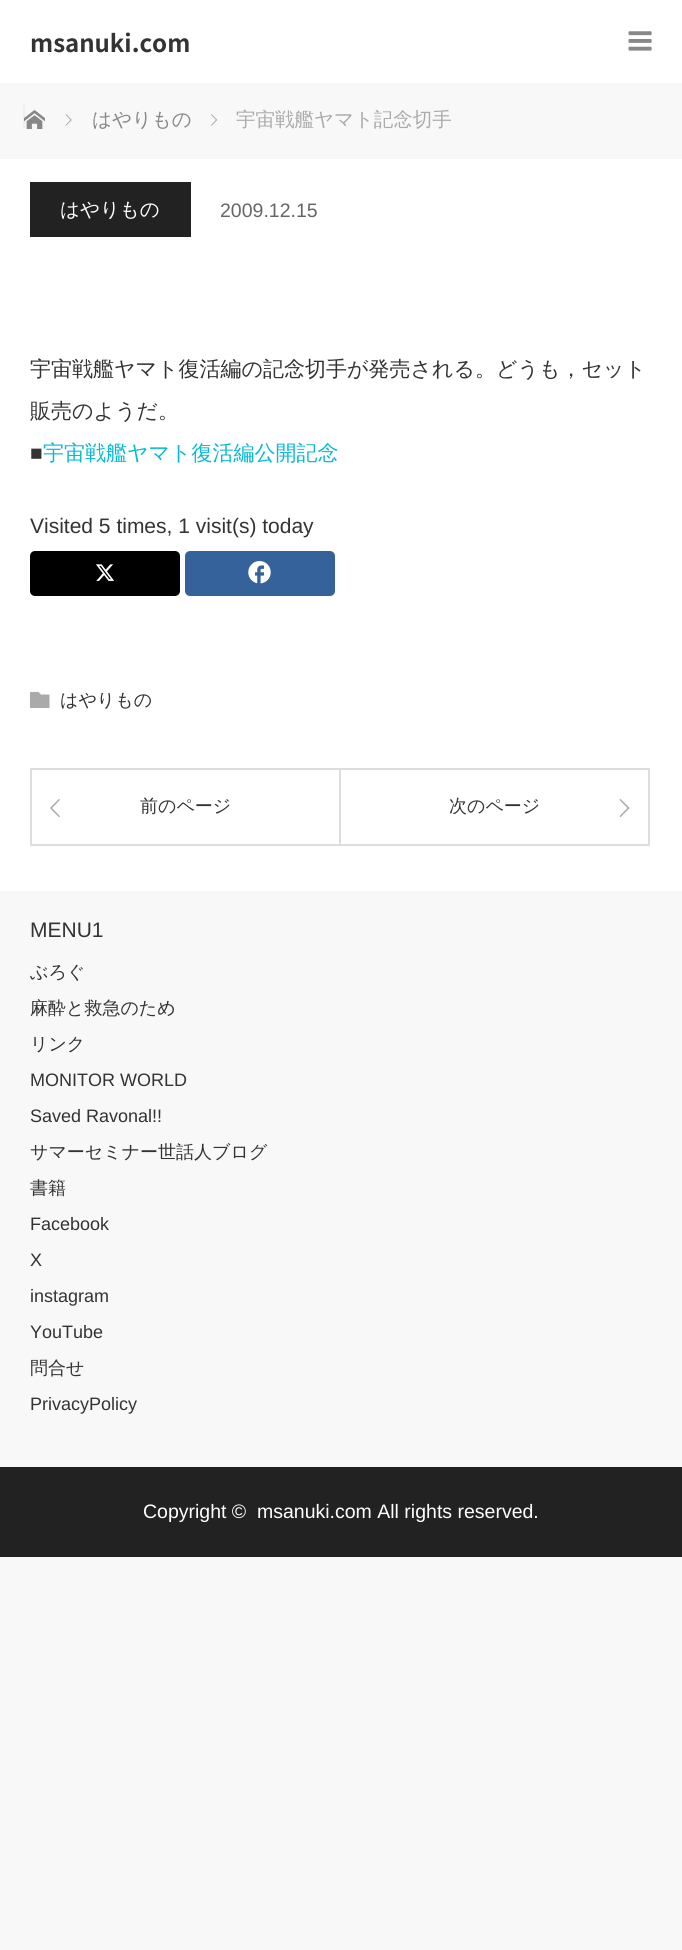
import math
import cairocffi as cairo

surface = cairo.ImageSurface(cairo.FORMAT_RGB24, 682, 1950)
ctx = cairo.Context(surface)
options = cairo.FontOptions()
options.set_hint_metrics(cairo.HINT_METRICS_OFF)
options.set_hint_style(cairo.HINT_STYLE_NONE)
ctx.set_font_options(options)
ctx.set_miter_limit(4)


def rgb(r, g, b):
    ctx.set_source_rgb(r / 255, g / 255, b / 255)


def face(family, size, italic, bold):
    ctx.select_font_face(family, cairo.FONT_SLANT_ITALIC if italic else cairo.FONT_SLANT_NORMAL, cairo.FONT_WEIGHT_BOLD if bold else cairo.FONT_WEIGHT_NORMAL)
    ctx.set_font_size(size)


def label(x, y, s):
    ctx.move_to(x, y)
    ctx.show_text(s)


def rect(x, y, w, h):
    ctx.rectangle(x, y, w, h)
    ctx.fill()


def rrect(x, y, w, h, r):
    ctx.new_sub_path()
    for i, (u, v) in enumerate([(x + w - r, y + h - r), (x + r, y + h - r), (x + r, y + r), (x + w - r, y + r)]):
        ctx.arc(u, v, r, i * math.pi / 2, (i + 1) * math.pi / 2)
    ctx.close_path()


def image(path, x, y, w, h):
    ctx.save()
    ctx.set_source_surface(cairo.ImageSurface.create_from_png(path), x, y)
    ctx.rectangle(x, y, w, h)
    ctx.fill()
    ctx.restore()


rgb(248, 248, 248)
ctx.paint()
rgb(255, 255, 255)
rect(0, 0, 682, 83)
face('Noto Sans JP', 24, 0, 1)
rgb(51, 51, 51)
label(30, 52, 'msanuki.com')
image('image0.png', 628, 31, 24, 20)
rgb(238, 238, 238)
rect(23, 105, 2, 23)
image('image1.png', 24, 110, 21, 19)
image('image2.png', 65, 114, 7, 12)
face('WenQuanYi Zen Hei Medium', 19.5, 0, 0)
rgb(136, 136, 136)
label(92, 126, 'はやりもの')
image('image3.png', 211, 114, 7, 12)
rgb(170, 170, 170)
label(236, 126, '宇宙戦艦ヤマト記念切手')
rgb(255, 255, 255)
rect(0, 159, 682, 732)
rgb(34, 34, 34)
rect(30, 182, 161, 55)
rgb(255, 255, 255)
label(60, 216, 'はやりもの')
face('Liberation Sans', 19.5, 0, 0)
rgb(102, 102, 102)
label(220, 217, '2009.12.15')
face('WenQuanYi Zen Hei Medium', 21, 0, 0)
rgb(51, 51, 51)
label(30, 376, '宇宙戦艦ヤマト復活編の記念切手が発売される。どうも，セット')
label(30, 418, '販売のようだ。')
face('Liberation Sans', 21, 0, 0)
label(30, 460, '■')
face('WenQuanYi Zen Hei Medium', 21, 0, 0)
rgb(8, 185, 212)
label(43, 460, '宇宙戦艦ヤマト復活編公開記念')
face('Liberation Sans', 21, 0, 0)
rgb(51, 51, 51)
label(30, 533, 'Visited 5 times, 1 visit(s) today')
rgb(0, 0, 0)
rrect(30, 551, 150, 45, 5)
ctx.fill()
image('image4.png', 96, 564, 19, 17)
rgb(53, 98, 154)
rrect(185, 551, 150, 45, 5)
ctx.fill()
image('image5.png', 248, 561, 23, 23)
rgb(170, 170, 170)
ctx.new_path()
ctx.move_to(38.5, 692)
ctx.line_to(41, 694.5)
ctx.line_to(49.5, 694.5)
ctx.line_to(49.5, 708)
ctx.line_to(30, 708)
ctx.line_to(30, 692)
ctx.close_path()
ctx.fill()
face('WenQuanYi Zen Hei Medium', 18, 0, 0)
rgb(51, 51, 51)
label(60, 706, 'はやりもの')
ctx.rectangle(31, 769, 309, 76)
rgb(221, 221, 221)
ctx.stroke()
image('image6.png', 50, 799, 10, 18)
rgb(51, 51, 51)
label(140, 812, '前のページ')
ctx.rectangle(340, 769, 309, 76)
rgb(221, 221, 221)
ctx.stroke()
rgb(51, 51, 51)
label(449, 812, '次のページ')
image('image7.png', 619, 799, 11, 18)
face('Liberation Sans', 21, 0, 0)
label(30, 937, 'MENU1')
face('WenQuanYi Zen Hei Medium', 18, 0, 0)
label(30, 978, 'ぶろぐ')
label(30, 1014, '麻酔と救急のため')
label(30, 1050, 'リンク')
face('Liberation Sans', 18, 0, 0)
label(30, 1086, 'MONITOR WORLD')
label(30, 1122, 'Saved Ravonal!!')
face('WenQuanYi Zen Hei Medium', 18, 0, 0)
label(30, 1158, 'サマーセミナー世話人ブログ')
label(30, 1194, '書籍')
face('Liberation Sans', 18, 0, 0)
label(30, 1230, 'Facebook')
label(30, 1266, 'X')
label(30, 1302, 'instagram')
label(30, 1338, 'YouTube')
face('WenQuanYi Zen Hei Medium', 18, 0, 0)
label(30, 1374, '問合せ')
face('Liberation Sans', 18, 0, 0)
label(30, 1410, 'PrivacyPolicy')
rgb(34, 34, 34)
rect(0, 1467, 682, 90)
face('Liberation Sans', 19.5, 0, 0)
rgb(255, 255, 255)
label(143, 1518, 'Copyright ©')
label(257, 1518, 'msanuki.com All rights reserved.')
surface.write_to_png('render.png')
